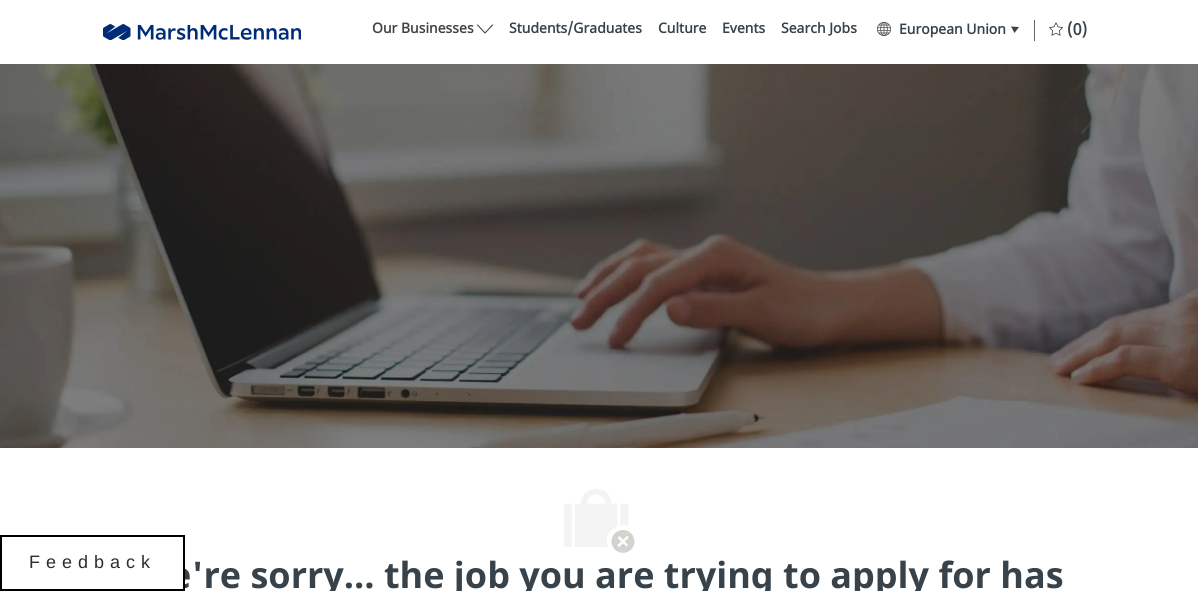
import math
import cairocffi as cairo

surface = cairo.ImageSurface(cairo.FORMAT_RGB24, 1198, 591)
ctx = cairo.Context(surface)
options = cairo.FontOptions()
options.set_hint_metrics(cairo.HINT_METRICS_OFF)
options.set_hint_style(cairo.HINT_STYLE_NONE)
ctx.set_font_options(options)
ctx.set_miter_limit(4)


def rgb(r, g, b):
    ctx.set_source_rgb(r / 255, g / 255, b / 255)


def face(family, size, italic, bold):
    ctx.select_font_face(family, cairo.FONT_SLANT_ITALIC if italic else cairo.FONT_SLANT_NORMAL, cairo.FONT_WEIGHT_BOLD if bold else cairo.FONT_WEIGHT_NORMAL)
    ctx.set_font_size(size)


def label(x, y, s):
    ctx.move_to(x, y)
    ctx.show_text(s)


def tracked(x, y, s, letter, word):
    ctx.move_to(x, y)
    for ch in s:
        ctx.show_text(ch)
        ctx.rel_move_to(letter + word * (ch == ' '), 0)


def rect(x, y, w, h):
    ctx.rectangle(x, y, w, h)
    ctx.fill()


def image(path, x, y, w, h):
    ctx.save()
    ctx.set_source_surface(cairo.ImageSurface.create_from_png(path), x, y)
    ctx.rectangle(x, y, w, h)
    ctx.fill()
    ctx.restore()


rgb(255, 255, 255)
ctx.paint()
image('image0.png', 103, 24, 198, 16)
face('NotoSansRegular', 14, 0, 1)
rgb(66, 66, 66)
label(372, 33, 'Our Businesses')
image('image1.png', 477, 24, 16, 10)
rgb(55, 66, 74)
label(509, 33, 'Students/Graduates')
label(658, 33, 'Culture')
label(722, 33, 'Events')
label(781, 33, 'Search Jobs')
rgb(102, 102, 102)
rect(1034, 20, 1, 21)
image('image2.png', 877, 22, 14, 14)
rgb(55, 66, 74)
label(899, 34, 'European Union')
rgb(66, 66, 66)
ctx.new_path()
ctx.move_to(1014.5, 33)
ctx.line_to(1019, 27)
ctx.line_to(1011, 26.5)
ctx.close_path()
ctx.fill()
image('image3.png', 1049, 22, 14, 14)
face('NotoSansRegular', 16, 0, 1)
rgb(55, 66, 74)
label(1067, 35, '(0)')
face('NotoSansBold', 36, 0, 1)
label(170, 588, 'e\'re sorry… the job you are trying to apply for has')
rgb(255, 255, 255)
rect(171, 568, 12, 21)
ctx.rectangle(1, 536, 183, 54)
rgb(0, 0, 0)
ctx.stroke()
face('Liberation Sans', 18, 0, 0)
rgb(45, 45, 45)
tracked(29, 568, 'Feedback', 6, 0)
image('image4.png', 0, 64, 1198, 384)
image('image5.png', 564, 488, 71, 65)
surface.write_to_png('render.png')
